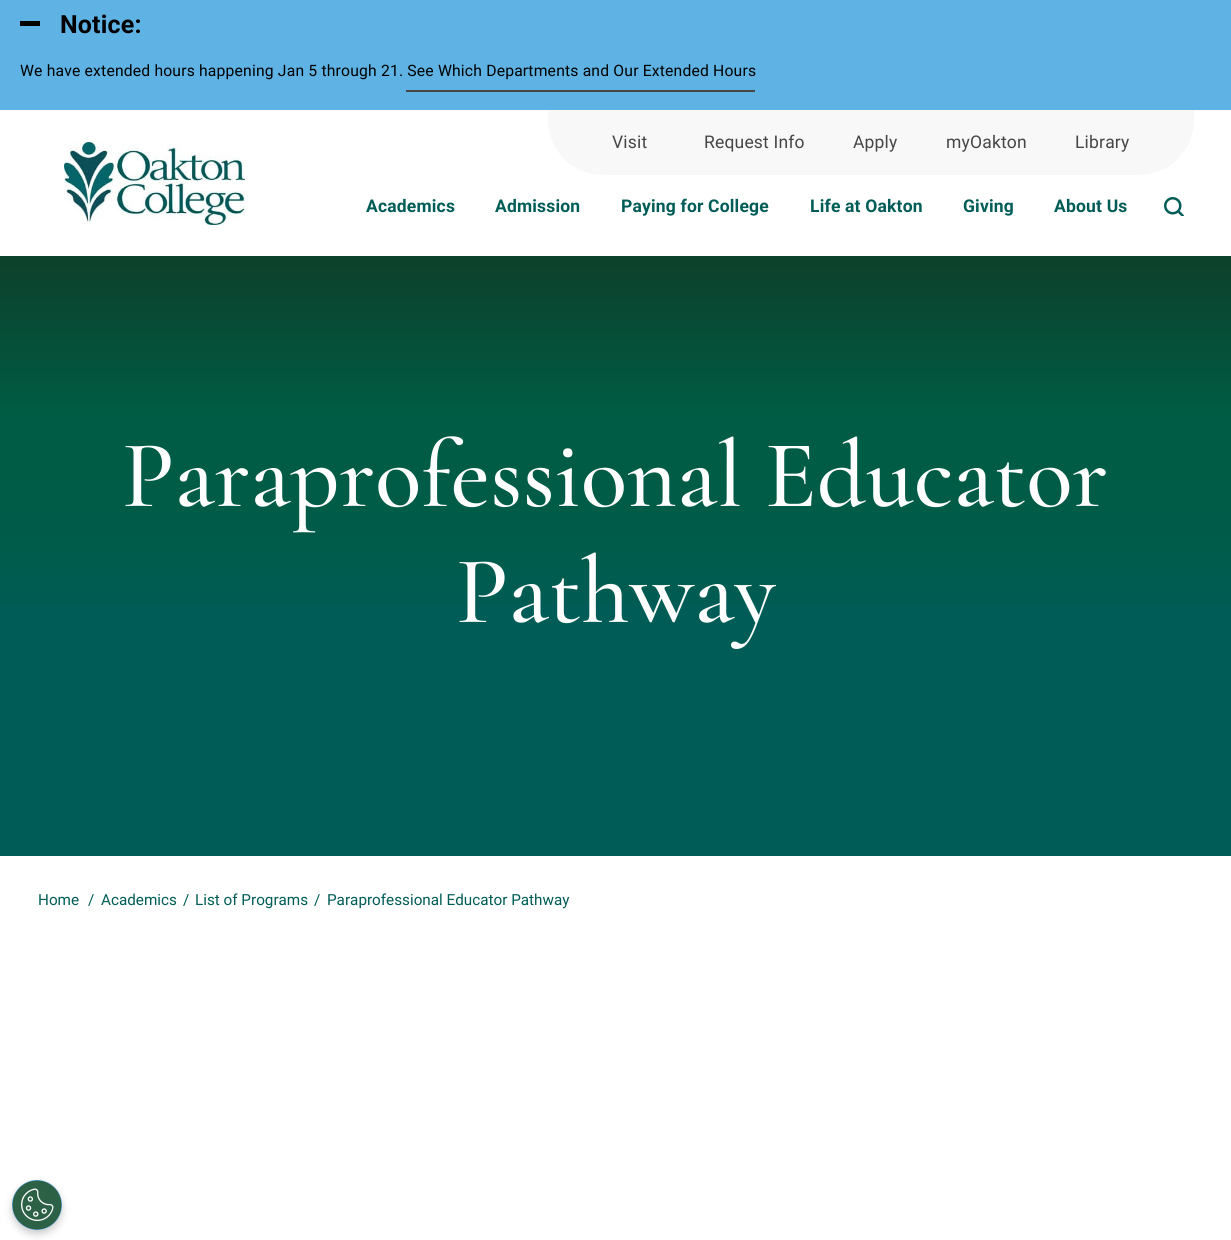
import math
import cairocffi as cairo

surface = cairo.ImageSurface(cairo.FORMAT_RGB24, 1231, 1240)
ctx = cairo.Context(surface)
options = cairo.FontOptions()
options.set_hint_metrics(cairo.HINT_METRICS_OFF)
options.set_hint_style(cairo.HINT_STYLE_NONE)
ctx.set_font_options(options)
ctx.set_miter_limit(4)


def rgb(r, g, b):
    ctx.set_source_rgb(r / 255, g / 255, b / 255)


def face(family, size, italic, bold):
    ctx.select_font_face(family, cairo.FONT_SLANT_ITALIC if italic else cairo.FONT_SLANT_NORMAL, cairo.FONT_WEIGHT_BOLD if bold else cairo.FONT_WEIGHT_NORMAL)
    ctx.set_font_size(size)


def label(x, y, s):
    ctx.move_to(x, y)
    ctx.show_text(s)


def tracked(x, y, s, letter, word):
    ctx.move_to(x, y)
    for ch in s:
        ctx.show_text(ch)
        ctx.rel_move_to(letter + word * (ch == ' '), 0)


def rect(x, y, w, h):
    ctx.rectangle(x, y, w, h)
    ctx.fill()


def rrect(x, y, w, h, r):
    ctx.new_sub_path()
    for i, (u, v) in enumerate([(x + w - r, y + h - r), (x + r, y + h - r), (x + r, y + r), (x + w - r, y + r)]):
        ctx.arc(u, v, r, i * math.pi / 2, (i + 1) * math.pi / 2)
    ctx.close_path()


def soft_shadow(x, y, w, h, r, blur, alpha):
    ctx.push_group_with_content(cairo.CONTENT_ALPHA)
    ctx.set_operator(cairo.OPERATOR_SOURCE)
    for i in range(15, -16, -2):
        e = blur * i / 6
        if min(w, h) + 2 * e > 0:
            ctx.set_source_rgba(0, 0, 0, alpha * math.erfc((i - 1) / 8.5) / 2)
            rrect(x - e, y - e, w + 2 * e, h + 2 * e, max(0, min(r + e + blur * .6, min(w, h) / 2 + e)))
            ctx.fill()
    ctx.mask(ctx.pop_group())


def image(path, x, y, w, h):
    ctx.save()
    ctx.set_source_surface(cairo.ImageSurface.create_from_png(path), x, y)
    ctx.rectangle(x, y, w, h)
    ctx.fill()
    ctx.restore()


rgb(255, 255, 255)
ctx.paint()
rgb(94, 179, 228)
rect(0, 0, 1231, 110)
rgb(0, 0, 0)
rect(20, 21, 20, 5)
face('Roboto', 25, 0, 1)
tracked(60, 33, 'Notice:', 0.18, 0)
face('Roboto', 15.7, 0, 0)
tracked(20, 76, 'We have extended hours happening Jan 5 through 21. See Which Departments and Our Extended Hours', 0.18, 0)
rgb(70, 70, 70)
rect(406, 90, 349, 2)
image('image0.png', 64, 142, 181, 83)
rgb(248, 248, 248)
ctx.new_path()
ctx.move_to(548, 110)
ctx.line_to(1194, 110)
ctx.line_to(1194, 120)
ctx.curve_to(1194, 150.5, 1169.5, 175, 1139, 175)
ctx.line_to(603, 175)
ctx.curve_to(572.5, 175, 548, 150.5, 548, 120)
ctx.close_path()
ctx.fill()
face('Roboto', 17.5, 0, 0)
rgb(70, 70, 70)
tracked(612, 148, 'Visit', 0.18, 0)
tracked(704, 148, 'Request Info', 0.18, 0)
tracked(853, 148, 'Apply', 0.18, 0)
tracked(946, 148, 'myOakton', 0.18, 0)
tracked(1075, 148, 'Library', 0.18, 0)
face('Roboto', 17.5, 0, 1)
rgb(0, 92, 86)
tracked(366, 212, 'Academics', 0.18, 0)
tracked(495, 212, 'Admission', 0.18, 0)
tracked(621, 212, 'Paying for College', 0.18, 0)
tracked(810, 212, 'Life at Oakton', 0.18, 0)
tracked(963, 212, 'Giving', 0.18, 0)
tracked(1054, 212, 'About Us', 0.18, 0)
image('image1.png', 1164, 197, 20, 19)
rect(0, 416, 1231, 440)
gradient = cairo.LinearGradient(616, 256, 616, 416)
gradient.add_color_stop_rgba(0, 0.078, 0.192, 0.184, 1)
gradient.add_color_stop_rgba(1, 0, 0.361, 0.337, 1)
ctx.set_source(gradient)
rect(0, 256, 1231, 160)
gradient = cairo.LinearGradient(616, 856, 616, 256)
gradient.add_color_stop_rgba(0.4, 0, 0.361, 0.337, 0.7)
gradient.add_color_stop_rgba(0.7, 0, 0.361, 0.137, 0.35)
ctx.set_source(gradient)
rect(0, 256, 1231, 347)
face('Cormorant Garamond Medium', 96, 0, 0)
rgb(255, 255, 255)
label(122, 506, 'Paraprofessional Educator')
label(456, 622, 'Pathway')
face('Roboto', 15.25, 0, 0)
rgb(0, 92, 86)
label(38, 905, 'Home')
label(88, 905, '/')
label(101, 905, 'Academics')
label(183, 905, '/')
label(195, 905, 'List of Programs')
label(314, 905, '/')
label(327, 905, 'Paraprofessional Educator Pathway')
rgb(0, 0, 0)
soft_shadow(12, 1184, 50, 50, 25, 4, 0.2)
rgb(106, 170, 228)
ctx.arc(37, 1205, 25, 0, 2 * math.pi)
ctx.fill()
image('image2.png', 12, 1180, 50, 50)
surface.write_to_png('render.png')
